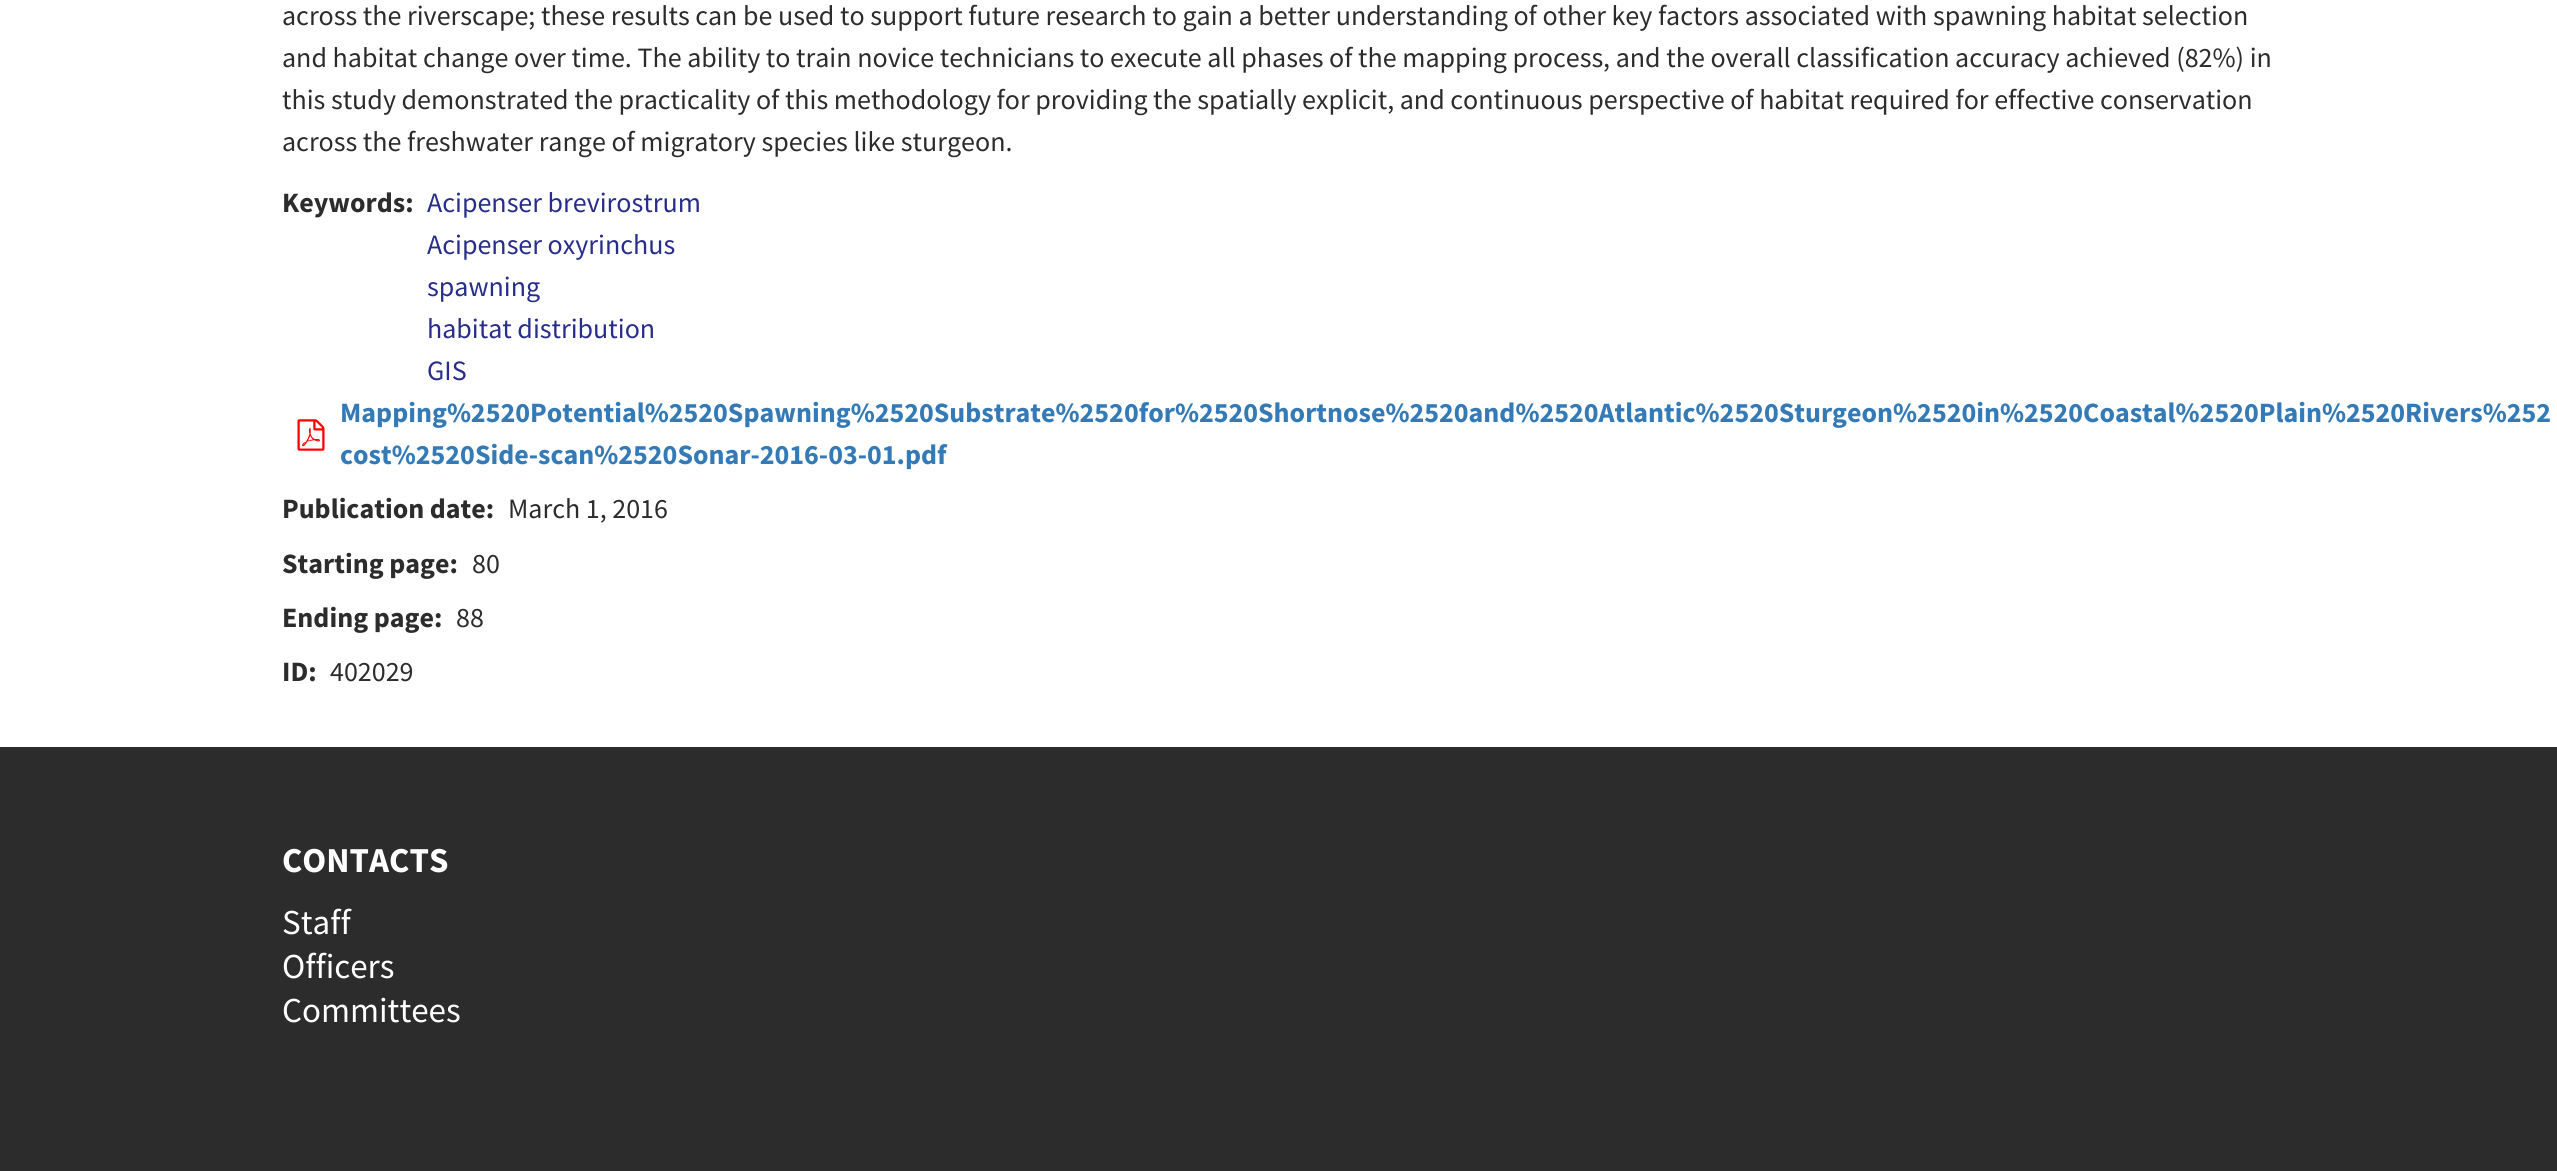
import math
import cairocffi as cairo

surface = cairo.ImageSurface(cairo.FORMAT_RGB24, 2557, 1171)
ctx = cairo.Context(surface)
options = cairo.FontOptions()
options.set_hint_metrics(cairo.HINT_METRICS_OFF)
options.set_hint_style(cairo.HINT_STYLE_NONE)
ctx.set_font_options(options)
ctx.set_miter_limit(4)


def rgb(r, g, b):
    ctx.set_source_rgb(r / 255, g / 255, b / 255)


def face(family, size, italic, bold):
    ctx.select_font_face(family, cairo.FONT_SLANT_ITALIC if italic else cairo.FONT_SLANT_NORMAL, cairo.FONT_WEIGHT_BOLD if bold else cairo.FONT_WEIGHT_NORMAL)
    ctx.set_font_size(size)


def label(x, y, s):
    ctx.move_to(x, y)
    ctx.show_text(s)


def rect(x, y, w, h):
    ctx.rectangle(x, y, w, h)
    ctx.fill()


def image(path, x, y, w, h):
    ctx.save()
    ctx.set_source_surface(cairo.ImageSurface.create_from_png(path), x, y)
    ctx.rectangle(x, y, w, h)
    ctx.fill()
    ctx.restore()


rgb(255, 255, 255)
ctx.paint()
face('Source Sans Pro', 28, 0, 0)
rgb(44, 44, 44)
label(282, 25, 'across the riverscape; these results can be used to support future research to gain a better understanding of other key factors associated with spawning habitat selection')
label(282, 67, 'and habitat change over time. The ability to train novice technicians to execute all phases of the mapping process, and the overall classification accuracy achieved (82%) in')
label(282, 109, 'this study demonstrated the practicality of this methodology for providing the spatially explicit, and continuous perspective of habitat required for effective conservation')
label(282, 151, 'across the freshwater range of migratory species like sturgeon.')
face('Source Sans Pro', 28, 0, 1)
label(282, 212, 'Keywords:')
face('Source Sans Pro', 28, 0, 0)
rgb(40, 45, 139)
label(427, 212, 'Acipenser brevirostrum')
label(427, 254, 'Acipenser oxyrinchus')
label(427, 296, 'spawning')
label(427, 338, 'habitat distribution')
label(427, 380, 'GIS')
image('image0.png', 297, 419, 28, 32)
face('Source Sans Pro', 28, 0, 1)
rgb(51, 122, 183)
label(340, 422, 'Mapping%2520Potential%2520Spawning%2520Substrate%2520for%2520Shortnose%2520and%2520Atlantic%2520Sturgeon%2520in%2520Coastal%2520Plain%2520Rivers%252')
label(340, 464, 'cost%2520Side-scan%2520Sonar-2016-03-01.pdf')
rgb(44, 44, 44)
label(282, 518, 'Publication date:')
face('Source Sans Pro', 28, 0, 0)
label(508, 518, 'March 1, 2016')
face('Source Sans Pro', 28, 0, 1)
label(282, 573, 'Starting page:')
face('Source Sans Pro', 28, 0, 0)
label(472, 573, '80')
face('Source Sans Pro', 28, 0, 1)
label(282, 627, 'Ending page:')
face('Source Sans Pro', 28, 0, 0)
label(456, 627, '88')
face('Source Sans Pro', 28, 0, 1)
label(282, 681, 'ID:')
face('Source Sans Pro', 28, 0, 0)
label(330, 681, '402029')
rect(0, 747, 2557, 424)
face('Source Sans Pro', 35, 0, 1)
rgb(255, 255, 255)
label(282, 872, 'CONTACTS')
face('Source Sans Pro', 35, 0, 0)
label(282, 934, 'Staff')
label(282, 978, 'Officers')
label(282, 1022, 'Committees')
surface.write_to_png('render.png')
